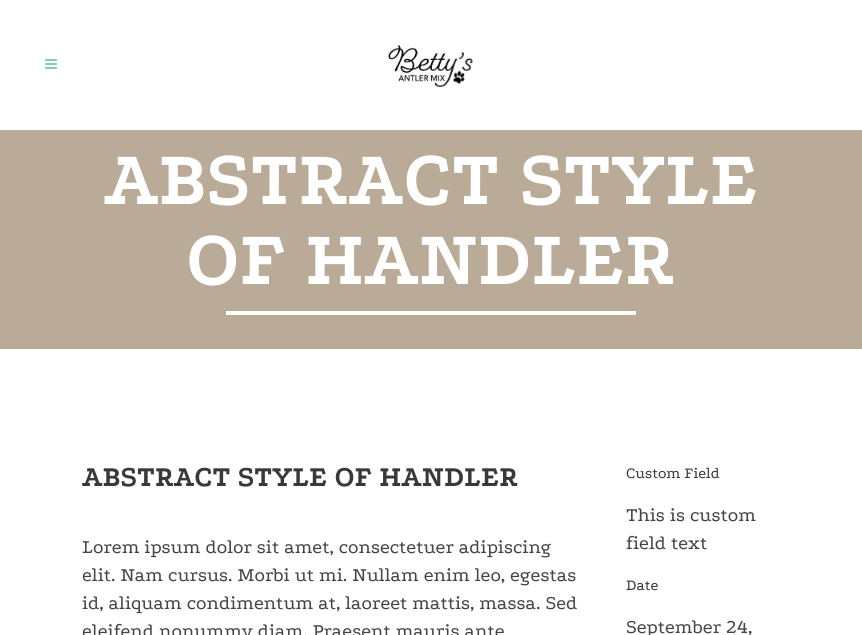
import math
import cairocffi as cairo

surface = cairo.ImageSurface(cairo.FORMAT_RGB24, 862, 635)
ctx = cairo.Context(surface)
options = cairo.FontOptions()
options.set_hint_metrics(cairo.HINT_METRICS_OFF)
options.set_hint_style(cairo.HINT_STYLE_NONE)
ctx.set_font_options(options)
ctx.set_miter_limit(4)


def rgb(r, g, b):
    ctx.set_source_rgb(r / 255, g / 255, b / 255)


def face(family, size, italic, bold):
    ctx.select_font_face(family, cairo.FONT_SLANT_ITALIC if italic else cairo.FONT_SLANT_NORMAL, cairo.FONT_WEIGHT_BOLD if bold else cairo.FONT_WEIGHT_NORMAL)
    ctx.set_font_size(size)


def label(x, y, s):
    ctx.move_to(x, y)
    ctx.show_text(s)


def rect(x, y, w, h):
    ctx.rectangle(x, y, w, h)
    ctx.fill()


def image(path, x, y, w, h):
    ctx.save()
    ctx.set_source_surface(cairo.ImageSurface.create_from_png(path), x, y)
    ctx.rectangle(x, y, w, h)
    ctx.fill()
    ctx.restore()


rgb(255, 255, 255)
ctx.paint()
image('image0.png', 45, 59, 12, 10)
image('image1.png', 388, 45, 85, 43)
rgb(185, 171, 152)
rect(0, 130, 862, 219)
face('Podkova', 80, 0, 1)
rgb(255, 255, 255)
label(104, 204, 'ABSTRACT STYLE')
label(186, 284, 'OF HANDLER')
rect(226, 311, 410, 4)
face('Podkova', 30, 0, 1)
rgb(57, 57, 57)
label(82, 486, 'ABSTRACT STYLE OF HANDLER')
face('Podkova', 20, 0, 0)
rgb(68, 68, 68)
label(82, 553, 'Lorem ipsum dolor sit amet, consectetuer adipiscing')
label(82, 581, 'elit. Nam cursus. Morbi ut mi. Nullam enim leo, egestas')
label(82, 609, 'id, aliquam condimentum at, laoreet mattis, massa. Sed')
label(82, 637, 'eleifend nonummy diam. Praesent mauris ante')
face('Podkova', 16, 0, 0)
rgb(57, 57, 57)
label(626, 478, 'Custom Field')
face('Podkova', 20, 0, 0)
rgb(68, 68, 68)
label(626, 521, 'This is custom')
label(626, 549, 'field text')
face('Podkova', 16, 0, 0)
rgb(57, 57, 57)
label(626, 590, 'Date')
face('Podkova', 20, 0, 0)
rgb(68, 68, 68)
label(626, 633, 'September 24,')
surface.write_to_png('render.png')
